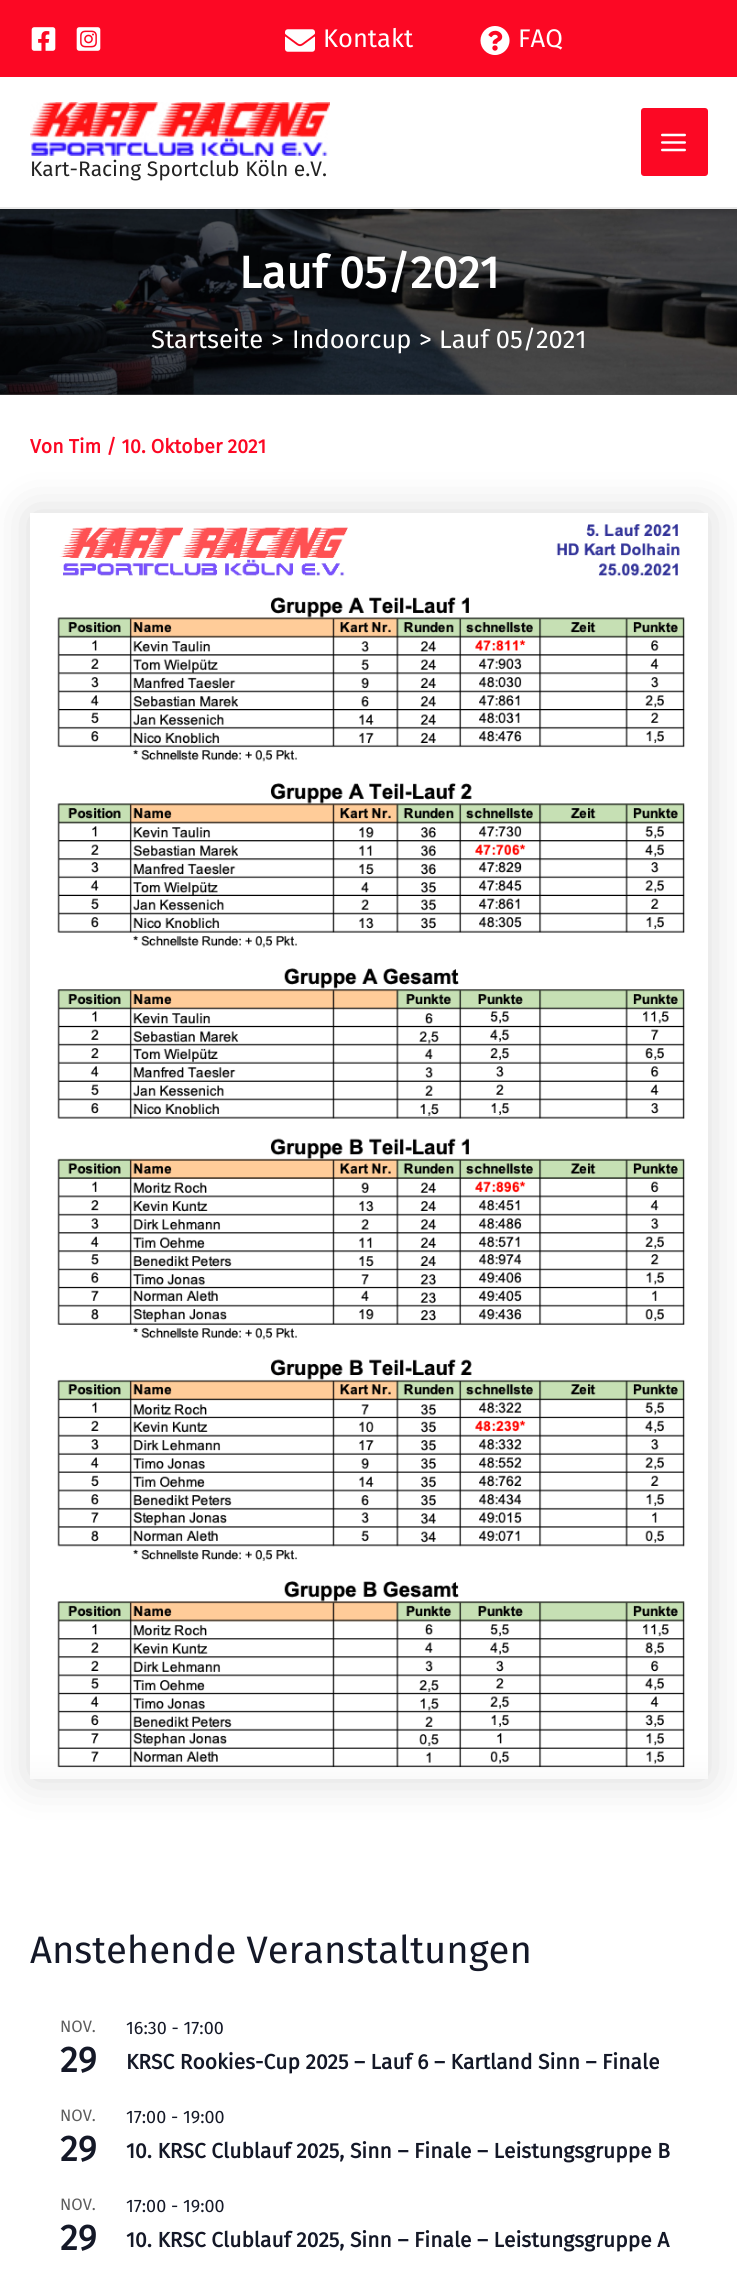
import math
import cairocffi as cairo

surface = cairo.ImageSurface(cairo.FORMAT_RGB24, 737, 2289)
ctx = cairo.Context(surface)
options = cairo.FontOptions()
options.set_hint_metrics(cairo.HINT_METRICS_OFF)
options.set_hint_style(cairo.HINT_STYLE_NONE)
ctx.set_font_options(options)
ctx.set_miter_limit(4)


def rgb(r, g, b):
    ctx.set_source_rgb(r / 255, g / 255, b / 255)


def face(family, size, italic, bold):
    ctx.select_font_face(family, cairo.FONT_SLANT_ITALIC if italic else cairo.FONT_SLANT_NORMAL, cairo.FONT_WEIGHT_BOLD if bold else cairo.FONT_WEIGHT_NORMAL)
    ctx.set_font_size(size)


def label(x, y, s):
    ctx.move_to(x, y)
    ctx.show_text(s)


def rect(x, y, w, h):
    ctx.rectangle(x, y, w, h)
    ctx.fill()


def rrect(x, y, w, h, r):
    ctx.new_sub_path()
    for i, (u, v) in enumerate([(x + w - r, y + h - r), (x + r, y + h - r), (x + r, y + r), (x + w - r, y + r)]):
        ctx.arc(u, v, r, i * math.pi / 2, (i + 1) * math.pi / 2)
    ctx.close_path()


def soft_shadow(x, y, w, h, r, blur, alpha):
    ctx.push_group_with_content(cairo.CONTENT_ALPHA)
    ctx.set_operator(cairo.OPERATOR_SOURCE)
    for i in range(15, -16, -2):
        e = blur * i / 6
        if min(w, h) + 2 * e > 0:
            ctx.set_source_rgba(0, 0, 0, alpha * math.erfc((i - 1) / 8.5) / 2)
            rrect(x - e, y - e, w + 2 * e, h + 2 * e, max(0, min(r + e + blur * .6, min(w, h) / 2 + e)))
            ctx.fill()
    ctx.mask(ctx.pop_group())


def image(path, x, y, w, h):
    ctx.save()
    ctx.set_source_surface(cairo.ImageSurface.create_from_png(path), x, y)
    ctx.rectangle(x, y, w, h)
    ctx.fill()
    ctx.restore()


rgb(255, 255, 255)
ctx.paint()
rgb(252, 8, 36)
rect(0, 0, 737, 77)
image('image0.png', 31, 27, 25, 24)
image('image1.png', 76, 27, 25, 24)
image('image2.png', 285, 29, 30, 23)
face('Fira Sans', 25.5, 0, 0)
rgb(255, 255, 255)
label(323, 47, 'Kontakt')
image('image3.png', 480, 26, 30, 29)
label(518, 47, 'FAQ')
rgb(234, 234, 234)
rect(0, 207, 737, 2)
image('image4.png', 30, 102, 300, 54)
face('Fira Sans', 21, 0, 0)
rgb(34, 34, 34)
label(30, 176, 'Kart-Racing Sportclub Köln e.V.')
rgb(252, 8, 36)
rrect(641, 108, 67, 68, 3)
ctx.fill()
image('image5.png', 661, 133, 25, 19)
rgb(80, 80, 80)
rect(0, 394, 737, 1)
image('image6.png', 0, 209, 737, 186)
face('Fira Sans', 45, 0, 1)
rgb(255, 255, 255)
label(239, 288, 'Lauf 05/2021')
face('Fira Sans', 25.5, 0, 0)
label(151, 348, 'Startseite')
label(271, 348, '>')
label(292, 348, 'Indoorcup')
label(419, 348, '>')
label(439, 348, 'Lauf 05/2021')
face('Fira Sans', 19.5, 0, 1)
rgb(252, 8, 36)
label(30, 453, 'Von Tim / 10. Oktober 2021')
ctx.save()
ctx.set_fill_rule(cairo.FILL_RULE_EVEN_ODD)
ctx.new_path()
ctx.move_to(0, 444)
ctx.line_to(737, 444)
ctx.line_to(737, 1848)
ctx.line_to(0, 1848)
ctx.close_path()
ctx.move_to(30, 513)
ctx.line_to(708, 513)
ctx.line_to(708, 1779)
ctx.line_to(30, 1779)
ctx.close_path()
ctx.clip()
rgb(0, 0, 0)
soft_shadow(30, 513, 678, 1266, 0, 22.5, 0.15)
ctx.restore()
image('image7.png', 30, 524, 678, 1255)
face('Fira Sans', 38.25, 0, 0)
rgb(20, 24, 39)
label(30, 1963, 'Anstehende Veranstaltungen')
face('Fira Sans', 16.5, 0, 0)
rgb(93, 93, 93)
label(60, 2032, 'NOV.')
face('Fira Sans', 36, 0, 1)
rgb(20, 24, 39)
label(60, 2072, '29')
face('Fira Sans', 18, 0, 0)
label(126, 2034, '16:30 - 17:00')
face('Fira Sans', 21, 0, 1)
label(126, 2069, 'KRSC Rookies-Cup 2025 – Lauf 6 – Kartland Sinn – Finale')
face('Fira Sans', 16.5, 0, 0)
rgb(93, 93, 93)
label(60, 2121, 'NOV.')
face('Fira Sans', 36, 0, 1)
rgb(20, 24, 39)
label(60, 2161, '29')
face('Fira Sans', 18, 0, 0)
label(126, 2123, '17:00 - 19:00')
face('Fira Sans', 21, 0, 1)
label(126, 2158, '10. KRSC Clublauf 2025, Sinn – Finale – Leistungsgruppe B')
face('Fira Sans', 16.5, 0, 0)
rgb(93, 93, 93)
label(60, 2210, 'NOV.')
face('Fira Sans', 36, 0, 1)
rgb(20, 24, 39)
label(60, 2250, '29')
face('Fira Sans', 18, 0, 0)
label(126, 2212, '17:00 - 19:00')
face('Fira Sans', 21, 0, 1)
label(126, 2247, '10. KRSC Clublauf 2025, Sinn – Finale – Leistungsgruppe A')
surface.write_to_png('render.png')
